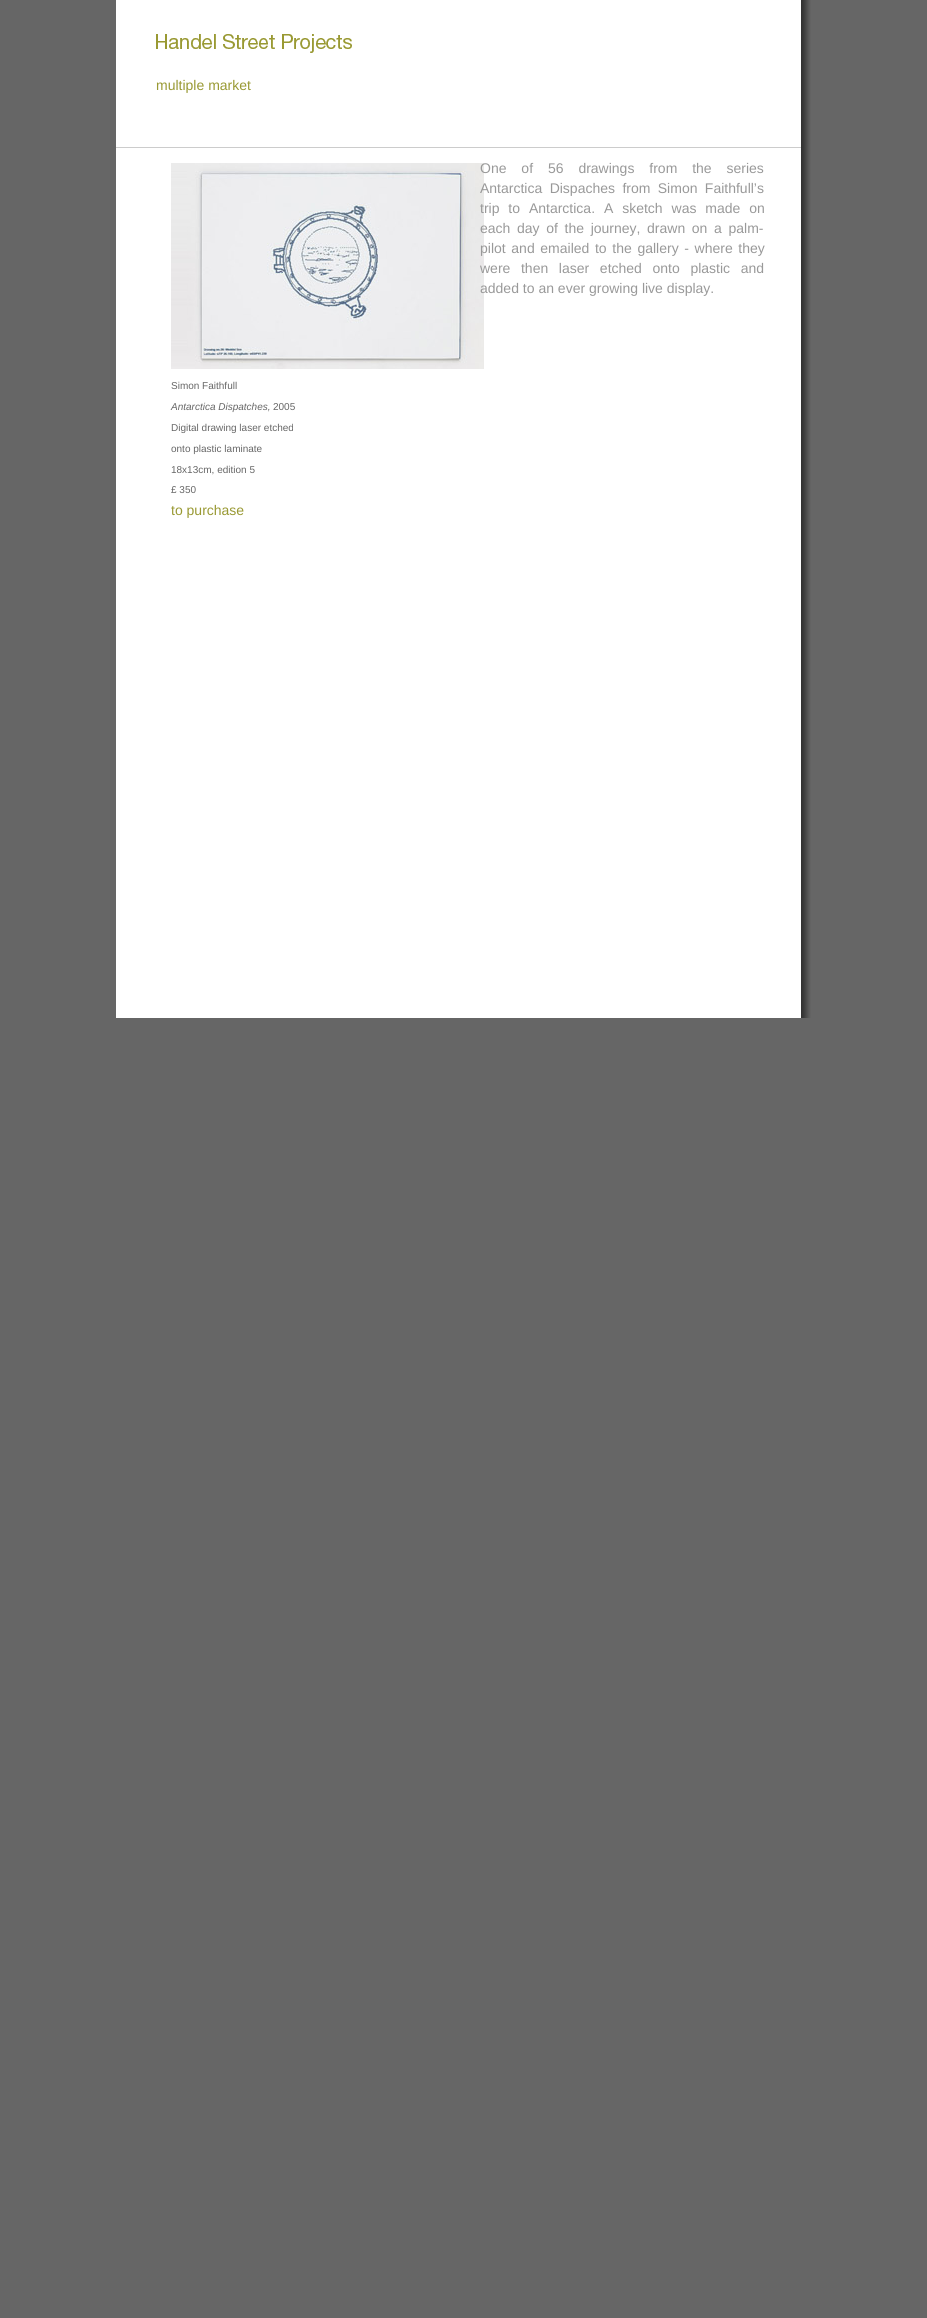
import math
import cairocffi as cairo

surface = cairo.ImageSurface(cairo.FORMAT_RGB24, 927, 2318)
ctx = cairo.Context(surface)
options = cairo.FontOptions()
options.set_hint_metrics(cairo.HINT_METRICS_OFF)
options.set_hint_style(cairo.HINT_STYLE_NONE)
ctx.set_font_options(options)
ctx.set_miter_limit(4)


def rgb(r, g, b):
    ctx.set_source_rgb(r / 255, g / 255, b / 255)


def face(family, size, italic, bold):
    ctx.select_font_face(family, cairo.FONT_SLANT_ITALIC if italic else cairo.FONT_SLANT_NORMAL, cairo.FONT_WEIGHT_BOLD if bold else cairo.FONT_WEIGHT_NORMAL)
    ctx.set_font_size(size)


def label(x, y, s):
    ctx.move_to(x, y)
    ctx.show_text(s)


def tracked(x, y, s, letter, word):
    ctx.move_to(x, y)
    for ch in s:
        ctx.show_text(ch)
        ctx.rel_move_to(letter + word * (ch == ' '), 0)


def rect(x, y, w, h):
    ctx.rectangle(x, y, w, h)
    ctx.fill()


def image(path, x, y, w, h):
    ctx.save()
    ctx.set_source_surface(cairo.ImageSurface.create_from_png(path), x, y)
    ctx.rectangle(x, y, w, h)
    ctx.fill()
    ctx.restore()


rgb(102, 102, 102)
ctx.paint()
rgb(255, 255, 255)
rect(116, 0, 685, 1018)
image('image0.png', 801, 0, 10, 1018)
rgb(204, 204, 204)
rect(116, 147, 685, 1)
image('image1.png', 156, 34, 196, 19)
face('Liberation Sans', 14, 0, 0)
rgb(153, 153, 51)
label(156, 90, 'multiple market')
image('image2.png', 171, 163, 313, 206)
rgb(153, 153, 153)
tracked(480, 173, 'One of 56 drawings from the series', 0, 11)
tracked(480, 193, 'Antarctica Dispaches from Simon Faithfull’s', 0, 3.5)
tracked(480, 213, 'trip to Antarctica. A sketch was made on', 0, 5)
tracked(480, 233, 'each day of the journey, drawn on a palm-', 0, 2.75)
tracked(480, 253, 'pilot and emailed to the gallery - where they', 0, 1.75)
tracked(480, 273, 'were then laser etched onto plastic and', 0, 6.75)
label(480, 293, 'added to an ever growing live display.')
face('Liberation Sans', 10, 0, 0)
rgb(102, 102, 102)
label(171, 389, 'Simon Faithfull')
face('Liberation Sans', 10, 1, 0)
label(171, 410, 'Antarctica Dispatches,')
face('Liberation Sans', 10, 0, 0)
label(273, 410, '2005')
label(171, 431, 'Digital drawing laser etched')
label(171, 452, 'onto plastic laminate')
label(171, 473, '18x13cm, edition 5')
label(171, 493, '£ 350')
face('Liberation Sans', 14, 0, 0)
rgb(153, 153, 51)
label(171, 515, 'to purchase')
surface.write_to_png('render.png')
